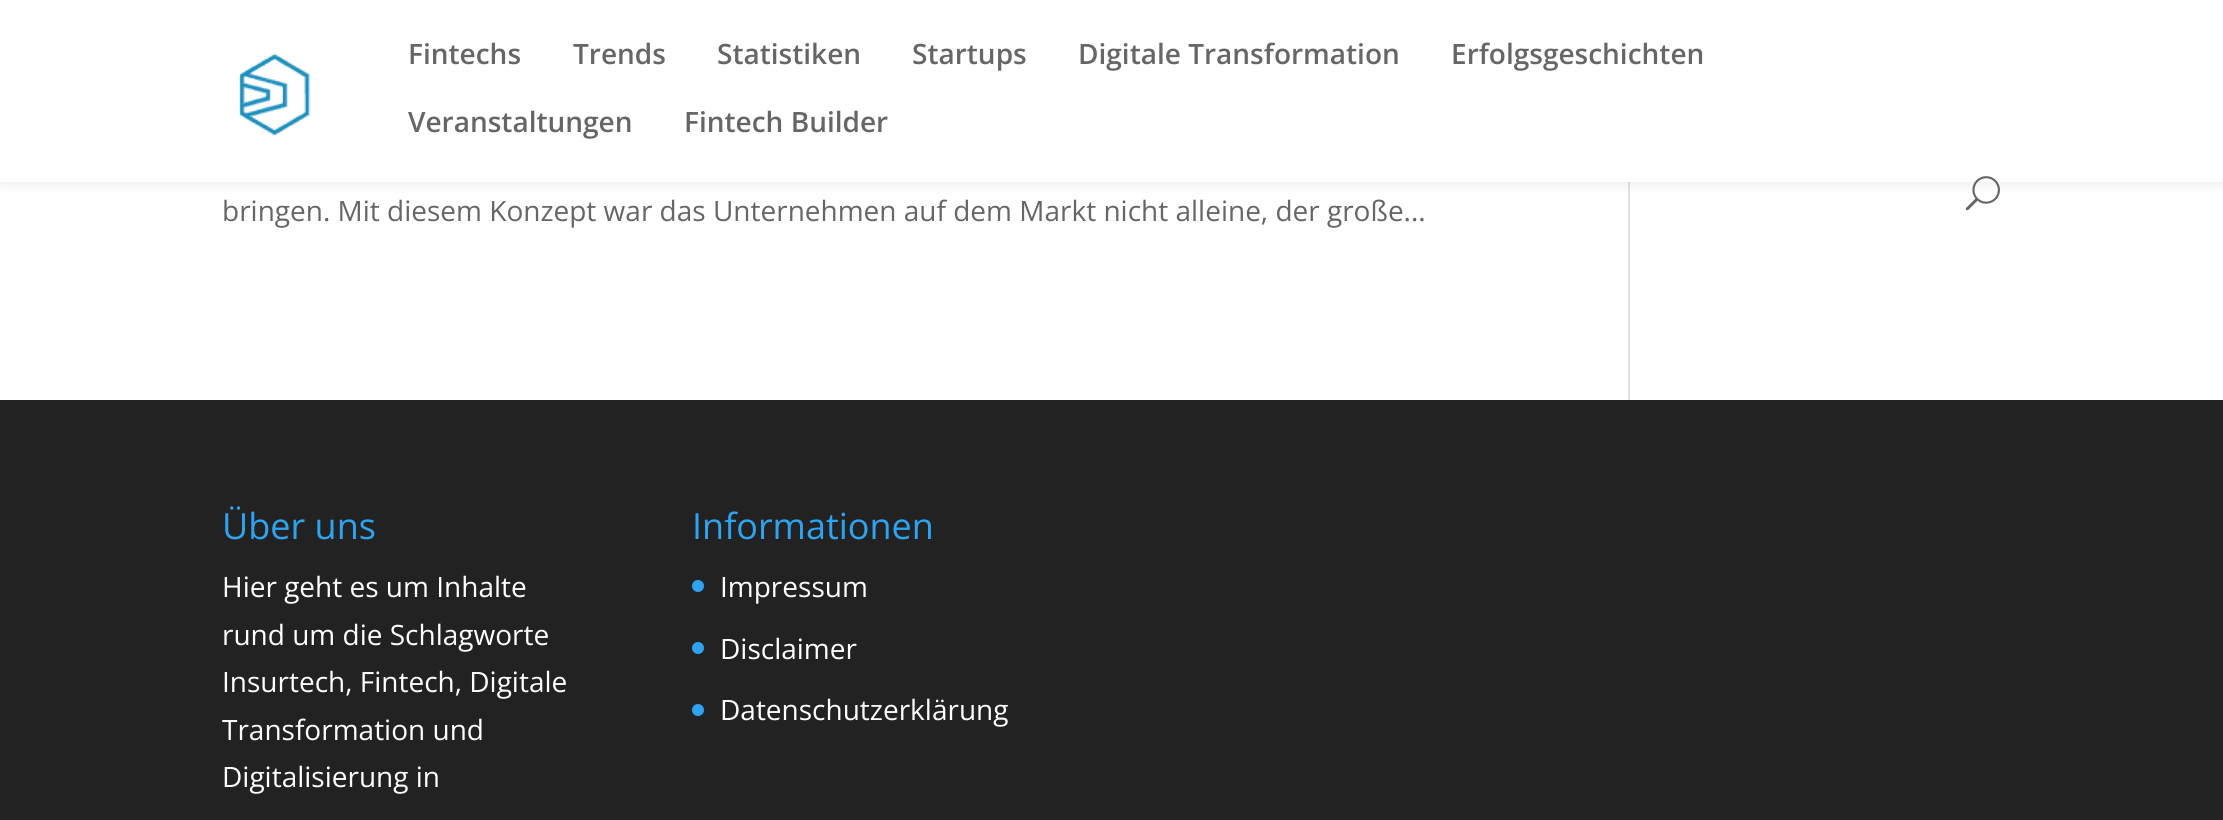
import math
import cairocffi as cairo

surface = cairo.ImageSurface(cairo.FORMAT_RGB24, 2223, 820)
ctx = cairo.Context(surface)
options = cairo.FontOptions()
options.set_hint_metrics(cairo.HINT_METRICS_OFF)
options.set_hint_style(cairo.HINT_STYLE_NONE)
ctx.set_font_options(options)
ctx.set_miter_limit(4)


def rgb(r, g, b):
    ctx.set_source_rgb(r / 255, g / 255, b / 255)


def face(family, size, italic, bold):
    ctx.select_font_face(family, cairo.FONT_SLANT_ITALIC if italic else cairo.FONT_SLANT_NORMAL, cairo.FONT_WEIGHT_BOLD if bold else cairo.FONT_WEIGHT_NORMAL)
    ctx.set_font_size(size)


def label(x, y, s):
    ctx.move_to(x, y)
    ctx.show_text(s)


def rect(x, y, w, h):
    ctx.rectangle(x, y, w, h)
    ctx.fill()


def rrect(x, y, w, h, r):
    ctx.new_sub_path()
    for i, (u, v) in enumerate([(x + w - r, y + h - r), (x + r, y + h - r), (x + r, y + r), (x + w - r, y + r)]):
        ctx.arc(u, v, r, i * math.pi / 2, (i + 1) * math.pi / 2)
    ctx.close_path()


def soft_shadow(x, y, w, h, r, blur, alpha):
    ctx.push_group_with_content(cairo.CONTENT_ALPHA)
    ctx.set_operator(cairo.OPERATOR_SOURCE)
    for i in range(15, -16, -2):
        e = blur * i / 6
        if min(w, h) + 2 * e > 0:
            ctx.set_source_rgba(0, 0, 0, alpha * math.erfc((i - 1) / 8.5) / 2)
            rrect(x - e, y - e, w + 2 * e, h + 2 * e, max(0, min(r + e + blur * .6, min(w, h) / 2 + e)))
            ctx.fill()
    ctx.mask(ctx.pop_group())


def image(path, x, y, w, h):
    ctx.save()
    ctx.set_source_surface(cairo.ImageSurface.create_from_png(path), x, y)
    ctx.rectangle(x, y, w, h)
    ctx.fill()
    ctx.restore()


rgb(255, 255, 255)
ctx.paint()
rgb(226, 226, 226)
rect(1628, 182, 2, 218)
rgb(0, 0, 0)
soft_shadow(0, 0, 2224, 182, 0, 7, 0.1)
rgb(255, 255, 255)
rect(0, 0, 2223, 182)
image('image0.png', 239, 53, 72, 83)
face('Open Sans SemiBold', 28, 0, 0)
rgb(102, 102, 102)
label(408, 64, 'Fintechs')
label(573, 64, 'Trends')
label(717, 64, 'Statistiken')
label(912, 64, 'Startups')
label(1078, 64, 'Digitale Transformation')
label(1451, 64, 'Erfolgsgeschichten')
label(408, 132, 'Veranstaltungen')
label(684, 132, 'Fintech Builder')
image('image1.png', 1965, 176, 35, 35)
face('Open Sans', 28, 0, 0)
label(222, 221, 'bringen. Mit diesem Konzept war das Unternehmen auf dem Markt nicht alleine, der große...')
rgb(34, 34, 34)
rect(0, 400, 2223, 420)
face('Open Sans', 36, 0, 0)
rgb(46, 163, 242)
label(222, 539, 'Über uns')
face('Open Sans', 28, 0, 0)
rgb(255, 255, 255)
label(222, 597, 'Hier geht es um Inhalte')
label(222, 645, 'rund um die Schlagworte')
label(222, 692, 'Insurtech, Fintech, Digitale')
label(222, 740, 'Transformation und')
label(222, 787, 'Digitalisierung in')
face('Open Sans', 36, 0, 0)
rgb(46, 163, 242)
label(692, 539, 'Informationen')
ctx.new_path()
ctx.arc(698, 586, 6, 0, 2 * math.pi)
ctx.fill()
face('Open Sans', 28, 0, 0)
rgb(255, 255, 255)
label(720, 597, 'Impressum')
rgb(46, 163, 242)
ctx.new_path()
ctx.arc(698, 648, 6, 0, 2 * math.pi)
ctx.fill()
rgb(255, 255, 255)
label(720, 659, 'Disclaimer')
rgb(46, 163, 242)
ctx.new_path()
ctx.arc(698, 710, 6, 0, 2 * math.pi)
ctx.fill()
rgb(255, 255, 255)
label(720, 720, 'Datenschutzerklärung')
surface.write_to_png('render.png')
